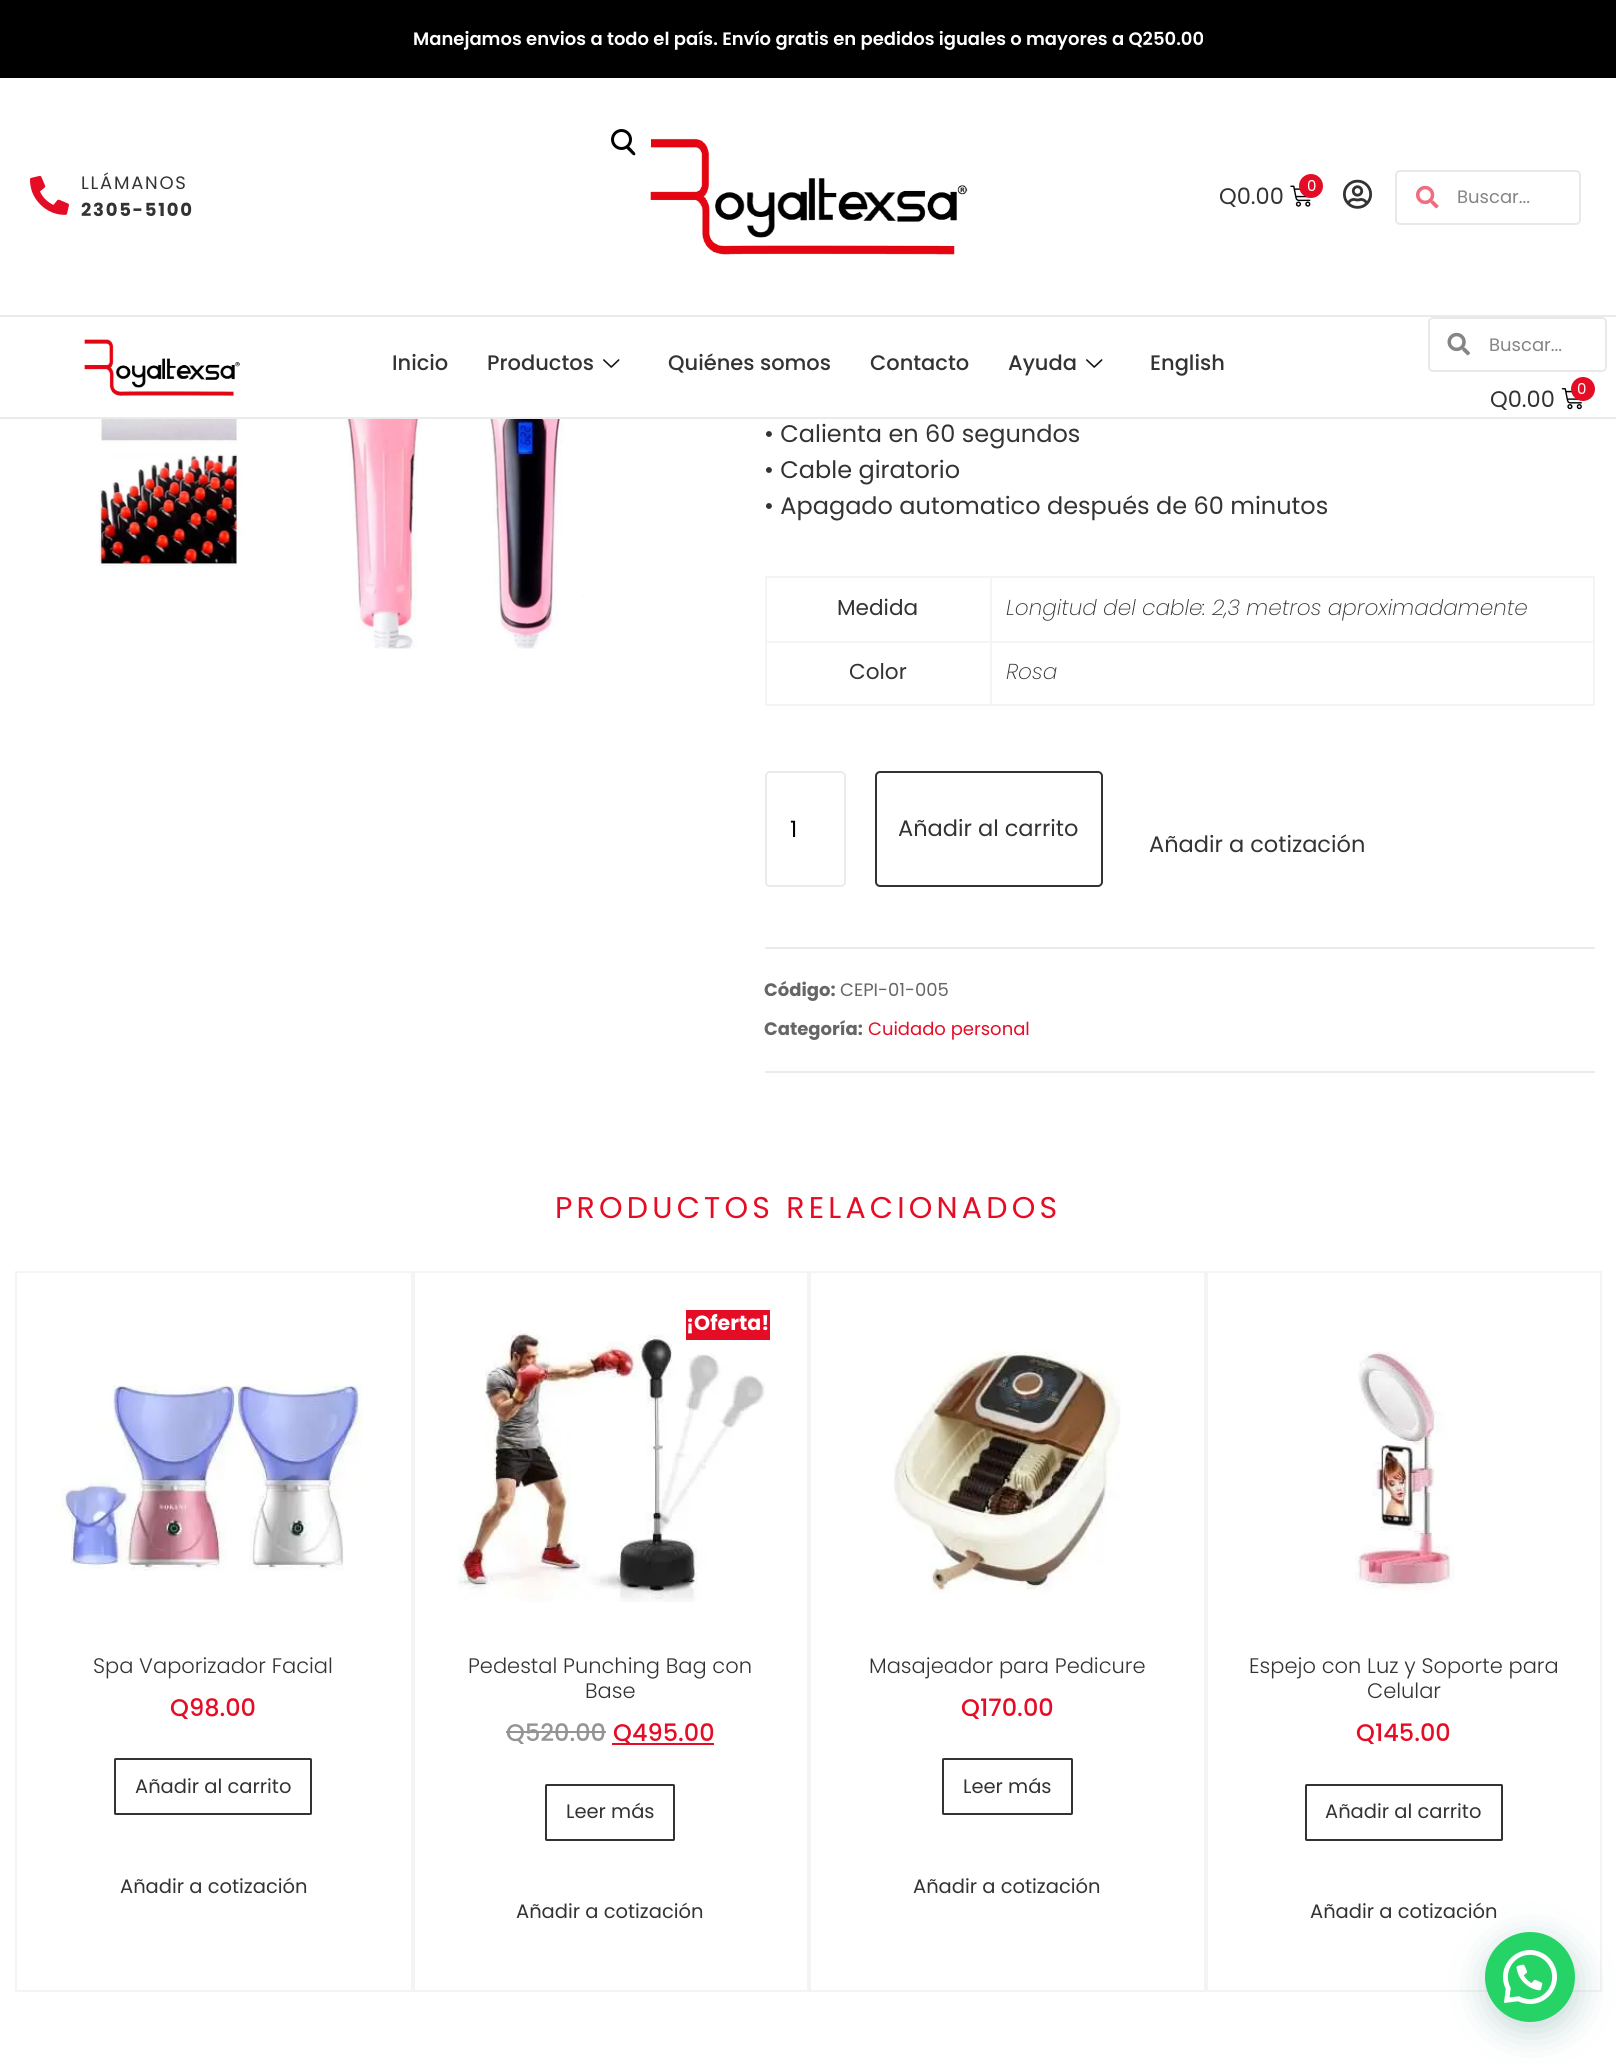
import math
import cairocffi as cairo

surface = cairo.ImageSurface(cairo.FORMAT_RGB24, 1616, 2064)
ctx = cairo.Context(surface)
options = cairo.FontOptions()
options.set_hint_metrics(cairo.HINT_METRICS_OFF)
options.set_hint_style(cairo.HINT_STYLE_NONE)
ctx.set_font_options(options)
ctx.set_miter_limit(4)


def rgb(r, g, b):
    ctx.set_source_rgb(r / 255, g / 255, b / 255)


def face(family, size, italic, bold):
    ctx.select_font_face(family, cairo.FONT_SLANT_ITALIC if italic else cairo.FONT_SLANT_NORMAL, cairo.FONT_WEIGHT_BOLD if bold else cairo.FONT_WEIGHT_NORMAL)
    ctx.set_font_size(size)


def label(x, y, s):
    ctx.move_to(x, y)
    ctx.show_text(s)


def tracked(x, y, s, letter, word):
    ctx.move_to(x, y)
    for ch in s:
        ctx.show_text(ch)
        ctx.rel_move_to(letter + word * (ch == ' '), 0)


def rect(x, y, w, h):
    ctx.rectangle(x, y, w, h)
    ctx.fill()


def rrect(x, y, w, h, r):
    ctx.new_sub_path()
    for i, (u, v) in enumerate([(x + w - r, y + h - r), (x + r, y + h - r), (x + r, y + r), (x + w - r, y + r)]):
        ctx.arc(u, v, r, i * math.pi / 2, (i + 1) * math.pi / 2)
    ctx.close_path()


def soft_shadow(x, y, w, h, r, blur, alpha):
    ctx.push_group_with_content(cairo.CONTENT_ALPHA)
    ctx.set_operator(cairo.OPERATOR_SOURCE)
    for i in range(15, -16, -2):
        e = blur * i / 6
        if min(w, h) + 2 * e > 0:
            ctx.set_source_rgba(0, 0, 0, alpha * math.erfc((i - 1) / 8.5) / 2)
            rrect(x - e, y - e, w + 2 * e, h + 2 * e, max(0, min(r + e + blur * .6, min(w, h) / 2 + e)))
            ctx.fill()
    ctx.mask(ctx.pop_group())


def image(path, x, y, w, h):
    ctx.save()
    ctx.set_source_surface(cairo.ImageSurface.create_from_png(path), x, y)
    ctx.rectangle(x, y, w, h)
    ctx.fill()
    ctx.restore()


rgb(255, 255, 255)
ctx.paint()
rgb(0, 0, 0)
rect(0, 0, 1616, 78)
face('Poppins SemiBold', 18, 0, 0)
rgb(255, 255, 255)
label(413, 45, 'Manejamos envios a todo el país. Envío gratis en pedidos iguales o mayores a Q250.00')
rgb(235, 235, 235)
rect(0, 315, 1616, 2)
image('image0.png', 30, 175, 39, 40)
face('Poppins', 18, 0, 0)
rgb(51, 51, 51)
tracked(81, 189, 'LLÁMANOS', 1.75, 0)
face('Poppins', 18, 0, 1)
tracked(81, 216, '2305-5100', 1.75, 0)
image('image1.png', 650, 138, 318, 117)
image('image2.png', 1290, 185, 21, 22)
rgb(229, 12, 38)
ctx.arc(1311, 186, 12, 0, 2 * math.pi)
ctx.fill()
face('Poppins', 15, 0, 0)
rgb(255, 255, 255)
label(1307, 191, '0')
face('Poppins', 22.5, 0, 0)
rgb(51, 51, 51)
label(1219, 204, 'Q0.00')
image('image3.png', 1343, 179, 29, 30)
rrect(1396, 171, 184, 53, 4)
rgb(233, 233, 233)
ctx.stroke()
image('image4.png', 1416, 185, 23, 24)
face('Poppins', 18, 0, 0)
rgb(133, 133, 133)
label(1457, 203, 'Buscar...')
rgb(235, 235, 235)
rect(0, 417, 1616, 2)
image('image5.png', 84, 339, 156, 57)
face('Poppins Medium', 21, 0, 0)
rgb(51, 51, 51)
label(392, 370, 'Inicio')
label(487, 370, 'Productos')
image('image6.png', 603, 359, 17, 9)
label(668, 370, 'Quiénes somos')
label(870, 370, 'Contacto')
label(1008, 370, 'Ayuda')
image('image6.png', 1086, 359, 17, 9)
label(1150, 370, 'English')
rrect(1429, 318, 177, 53, 4)
rgb(233, 233, 233)
ctx.stroke()
image('image7.png', 1447, 332, 23, 24)
face('Poppins', 18, 0, 0)
rgb(133, 133, 133)
label(1489, 351, 'Buscar...')
image('image8.png', 1561, 388, 21, 22)
rgb(229, 12, 38)
ctx.arc(1583, 389, 12, 0, 2 * math.pi)
ctx.fill()
face('Poppins', 15, 0, 0)
rgb(255, 255, 255)
label(1577, 394, '0')
face('Poppins', 22.5, 0, 0)
rgb(51, 51, 51)
label(1490, 407, 'Q0.00')
rgb(255, 255, 255)
ctx.new_path()
ctx.arc(624, 143, 27, 0, 2 * math.pi)
ctx.fill()
ctx.arc(621.5, 139.5, 9, 0, 2 * math.pi)
rgb(0, 0, 0)
ctx.set_line_width(3)
ctx.stroke()
ctx.new_path()
ctx.move_to(626.5, 146.5)
ctx.curve_to(628, 144.5, 631, 148.5, 632, 149.5)
ctx.curve_to(632.5, 150.5, 636.5, 153, 635, 155)
ctx.curve_to(633.5, 156.5, 630.5, 152.5, 629.5, 151.5)
ctx.curve_to(629, 151, 625, 148, 626.5, 146.5)
ctx.close_path()
ctx.fill()
image('image9.png', 98, 419, 489, 230)
face('Poppins', 24, 0, 0)
rgb(51, 51, 51)
label(764, 442, '• Calienta en 60 segundos')
label(764, 478, '• Cable giratorio')
label(764, 514, '• Apagado automatico después de 60 minutos')
rgb(244, 244, 244)
rect(990, 576, 605, 2)
rect(990, 641, 605, 2)
rect(1593, 641, 2, 64)
rect(990, 704, 605, 2)
rect(990, 641, 2, 64)
rect(765, 641, 227, 2)
rect(990, 576, 2, 66)
rect(765, 576, 227, 2)
rect(765, 704, 227, 2)
rect(765, 641, 2, 64)
rect(765, 576, 2, 66)
face('Poppins', 21.6, 0, 0)
rgb(51, 51, 51)
label(837, 615, 'Medida')
rgb(244, 244, 244)
rect(1593, 576, 2, 66)
face('Poppins ExtraLight', 21.6, 1, 0)
rgb(51, 51, 51)
label(1006, 615, 'Longitud del cable: 2,3 metros aproximadamente')
face('Poppins', 21.6, 0, 0)
label(849, 679, 'Color')
face('Poppins ExtraLight', 21.6, 1, 0)
label(1006, 679, 'Rosa')
rrect(766, 772, 79, 114, 4)
rgb(235, 235, 235)
ctx.set_line_width(2)
ctx.stroke()
face('Poppins', 22.5, 0, 0)
rgb(0, 0, 0)
label(790, 837, '1')
rrect(876, 772, 226, 114, 4)
rgb(51, 51, 51)
ctx.stroke()
label(898, 836, 'Añadir al carrito')
label(1149, 852, 'Añadir a cotización')
rgb(235, 235, 235)
rect(765, 947, 830, 2)
rect(765, 1071, 830, 2)
face('Poppins', 18, 0, 1)
rgb(102, 102, 102)
label(764, 996, 'Código:')
face('Poppins', 18, 0, 0)
label(840, 996, 'CEPI-01-005')
face('Poppins', 18, 0, 1)
label(764, 1035, 'Categoría:')
face('Poppins', 18, 0, 0)
rgb(229, 12, 38)
label(868, 1035, 'Cuidado personal')
face('Poppins', 30, 0, 0)
tracked(555, 1218, 'PRODUCTOS RELACIONADOS', 4.2, 0)
ctx.rectangle(16, 1272, 396, 719)
rgb(244, 244, 244)
ctx.stroke()
image('image10.png', 54, 1379, 309, 192)
face('Poppins Light', 21, 0, 0)
rgb(51, 51, 51)
label(93, 1673, 'Spa Vaporizador Facial')
face('Poppins Medium', 24, 0, 0)
rgb(229, 12, 38)
label(170, 1716, 'Q98.00')
rrect(115, 1759, 196, 55, 0.5)
rgb(51, 51, 51)
ctx.stroke()
face('Poppins', 19.5, 0, 0)
label(135, 1793, 'Añadir al carrito')
label(120, 1893, 'Añadir a cotización')
ctx.rectangle(414, 1272, 394, 719)
rgb(244, 244, 244)
ctx.stroke()
image('image11.png', 457, 1329, 308, 273)
rgb(229, 12, 38)
rect(686, 1310, 84, 30)
face('Poppins', 20.5, 0, 1)
rgb(255, 255, 255)
label(686, 1330, '¡Oferta!')
face('Poppins Light', 21, 0, 0)
rgb(51, 51, 51)
label(468, 1673, 'Pedestal Punching Bag con')
label(585, 1698, 'Base')
face('Poppins Medium', 24, 0, 0)
rgb(148, 148, 148)
label(506, 1741, 'Q520.00')
rect(506, 1731, 100, 2)
rgb(229, 12, 38)
rect(612, 1743, 102, 2)
label(613, 1741, 'Q495.00')
rrect(546, 1785, 128, 55, 0.5)
rgb(51, 51, 51)
ctx.stroke()
face('Poppins', 19.5, 0, 0)
label(566, 1818, 'Leer más')
label(516, 1918, 'Añadir a cotización')
ctx.rectangle(810, 1272, 395, 719)
rgb(244, 244, 244)
ctx.stroke()
image('image12.png', 893, 1348, 228, 246)
face('Poppins Light', 21, 0, 0)
rgb(51, 51, 51)
label(869, 1673, 'Masajeador para Pedicure')
face('Poppins Medium', 24, 0, 0)
rgb(229, 12, 38)
label(961, 1716, 'Q170.00')
rrect(943, 1759, 129, 55, 0.5)
rgb(51, 51, 51)
ctx.stroke()
face('Poppins', 19.5, 0, 0)
label(963, 1793, 'Leer más')
label(913, 1893, 'Añadir a cotización')
ctx.rectangle(1207, 1272, 394, 719)
rgb(244, 244, 244)
ctx.stroke()
image('image13.png', 1355, 1351, 99, 243)
face('Poppins Light', 21, 0, 0)
rgb(51, 51, 51)
label(1249, 1673, 'Espejo con Luz y Soporte para')
label(1367, 1698, 'Celular')
face('Poppins Medium', 24, 0, 0)
rgb(229, 12, 38)
label(1356, 1741, 'Q145.00')
rrect(1306, 1785, 196, 55, 0.5)
rgb(51, 51, 51)
ctx.stroke()
face('Poppins', 19.5, 0, 0)
label(1325, 1818, 'Añadir al carrito')
label(1310, 1918, 'Añadir a cotización')
rgb(7, 94, 84)
soft_shadow(1487, 1941, 90, 90, 45, 18, 0.24)
rgb(37, 211, 102)
ctx.arc(1530, 1977, 45, 0, 2 * math.pi)
ctx.fill()
image('image14.png', 1503, 1950, 54, 54)
surface.write_to_png('render.png')
